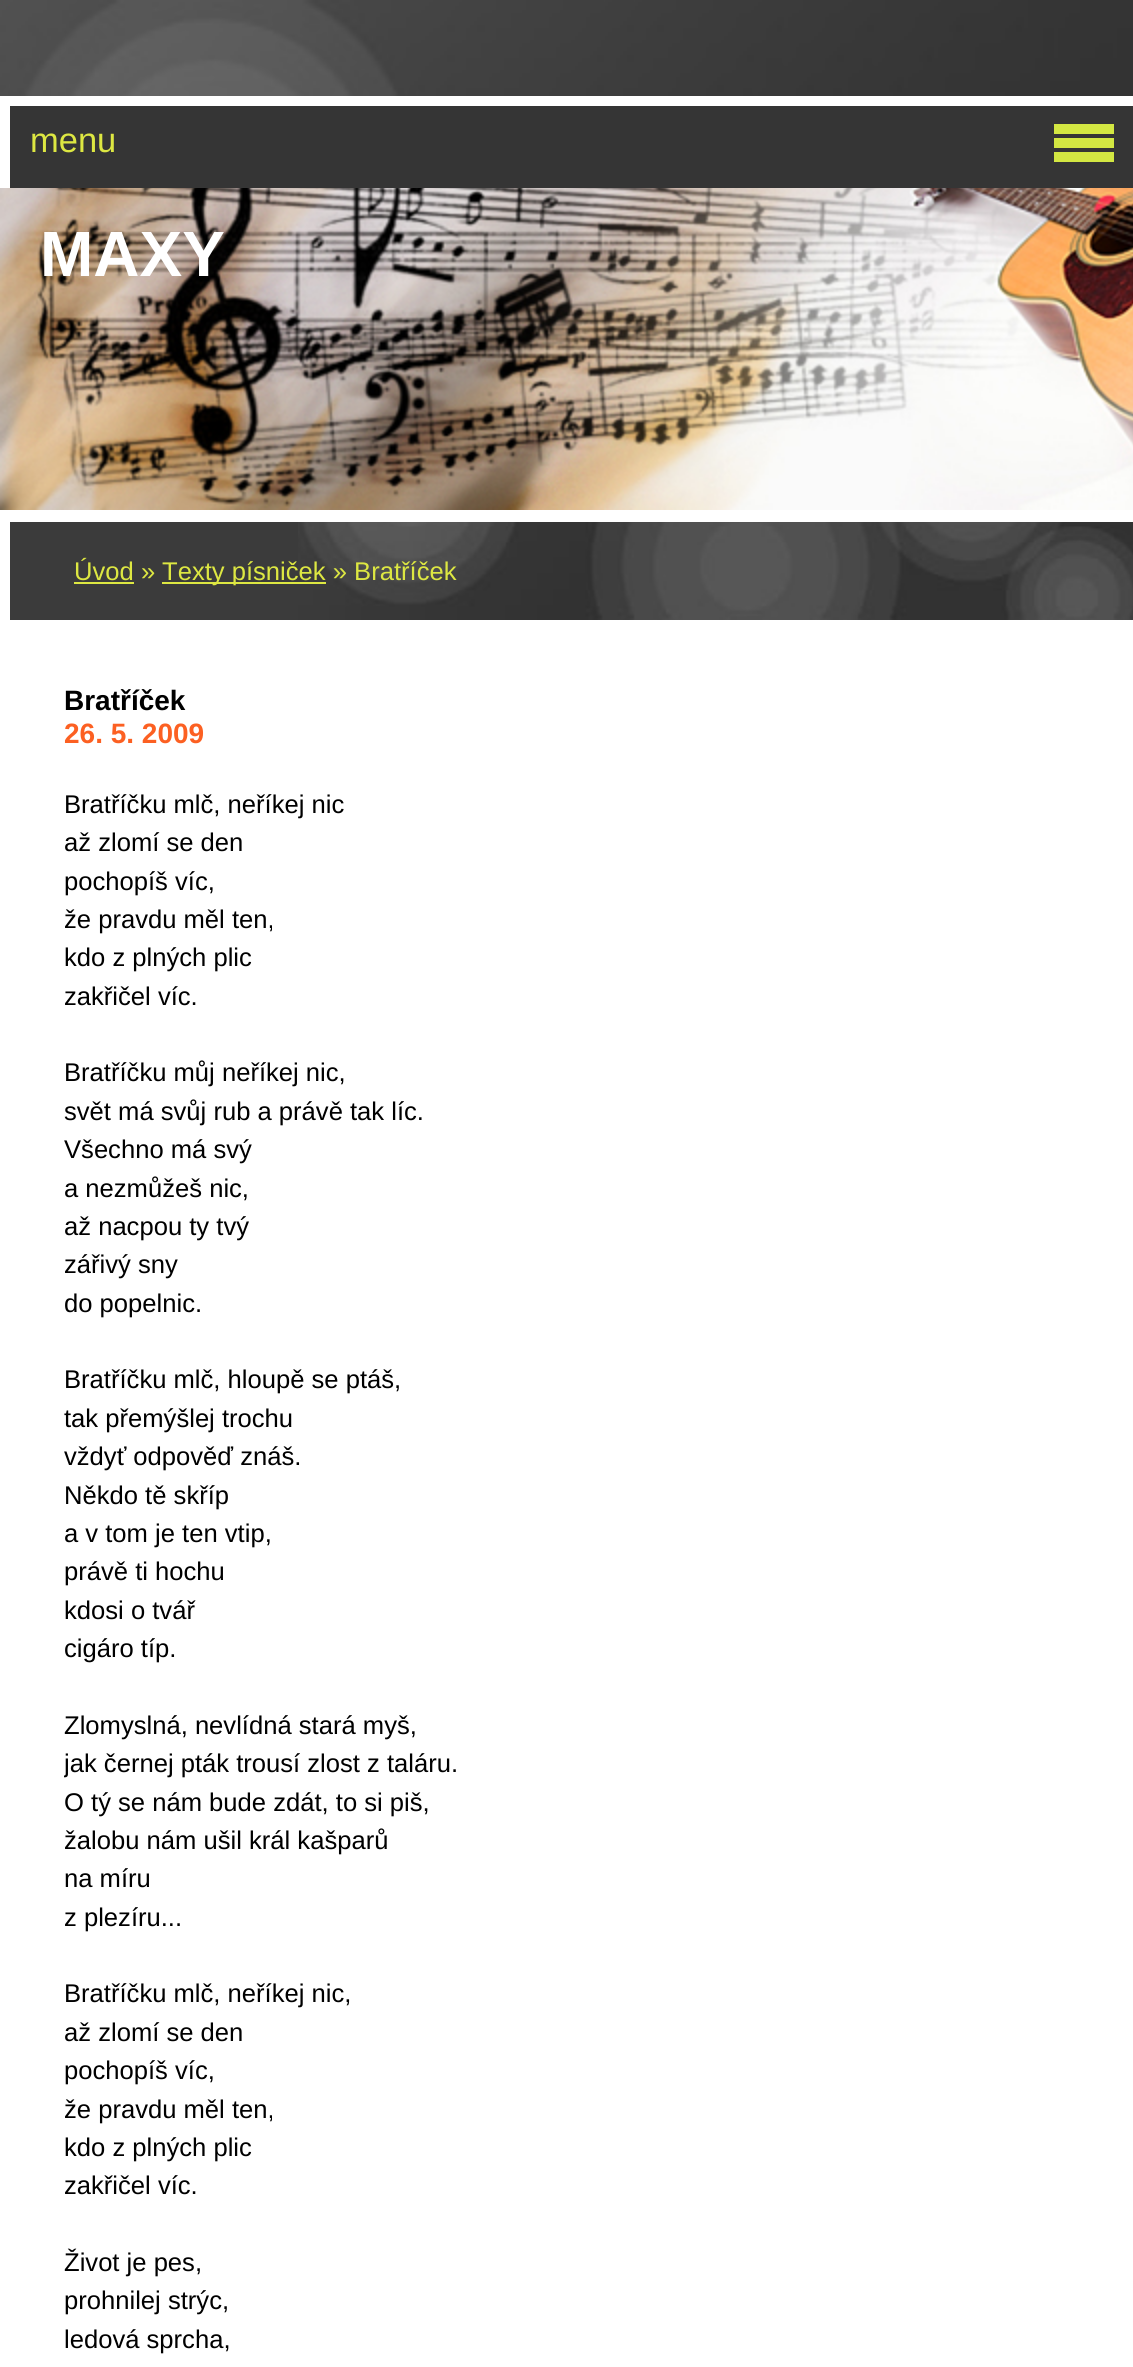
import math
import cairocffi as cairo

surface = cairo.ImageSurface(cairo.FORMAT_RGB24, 1133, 2367)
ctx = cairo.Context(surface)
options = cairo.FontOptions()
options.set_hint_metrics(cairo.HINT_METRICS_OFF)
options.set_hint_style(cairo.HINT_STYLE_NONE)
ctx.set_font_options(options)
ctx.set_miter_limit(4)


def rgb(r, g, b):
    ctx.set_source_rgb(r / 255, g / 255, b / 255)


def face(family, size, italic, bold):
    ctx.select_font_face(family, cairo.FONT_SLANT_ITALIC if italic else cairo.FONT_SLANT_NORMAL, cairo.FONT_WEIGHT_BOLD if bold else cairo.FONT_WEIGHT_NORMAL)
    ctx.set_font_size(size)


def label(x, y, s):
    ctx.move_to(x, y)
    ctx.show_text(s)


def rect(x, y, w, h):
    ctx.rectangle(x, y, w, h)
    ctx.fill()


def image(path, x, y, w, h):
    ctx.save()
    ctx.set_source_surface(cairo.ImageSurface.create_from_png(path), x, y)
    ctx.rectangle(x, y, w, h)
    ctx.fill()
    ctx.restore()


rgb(255, 255, 255)
ctx.paint()
image('image0.png', 0, 0, 1133, 96)
rgb(53, 53, 53)
rect(10, 106, 1123, 82)
face('Liberation Sans', 34.5, 0, 0)
rgb(221, 231, 66)
label(30, 152, 'menu')
rgb(59, 59, 59)
rect(10, 522, 288, 98)
image('image1.png', 298, 522, 835, 98)
face('Liberation Sans', 25.6, 0, 0)
rgb(221, 231, 66)
label(74, 580, 'Úvod »')
rect(74, 582, 60, 2)
rect(162, 582, 164, 2)
label(162, 580, 'Texty písniček » Bratříček')
face('Liberation Sans', 28, 0, 1)
rgb(0, 0, 0)
label(64, 710, 'Bratříček')
rgb(252, 96, 34)
label(64, 743, '26. 5. 2009')
face('Liberation Sans', 25.6, 0, 0)
rgb(0, 0, 0)
label(64, 813, 'Bratříčku mlč, neříkej nic')
label(64, 851, 'až zlomí se den')
label(64, 890, 'pochopíš víc,')
label(64, 928, 'že pravdu měl ten,')
label(64, 966, 'kdo z plných plic')
label(64, 1005, 'zakřičel víc.')
label(64, 1081, 'Bratříčku můj neříkej nic,')
label(64, 1120, 'svět má svůj rub a právě tak líc.')
label(64, 1158, 'Všechno má svý')
label(64, 1197, 'a nezmůžeš nic,')
label(64, 1235, 'až nacpou ty tvý')
label(64, 1273, 'zářivý sny')
label(64, 1312, 'do popelnic.')
label(64, 1388, 'Bratříčku mlč, hloupě se ptáš,')
label(64, 1427, 'tak přemýšlej trochu')
label(64, 1465, 'vždyť odpověď znáš.')
label(64, 1504, 'Někdo tě skříp')
label(64, 1542, 'a v tom je ten vtip,')
label(64, 1580, 'právě ti hochu')
label(64, 1619, 'kdosi o tvář')
label(64, 1657, 'cigáro típ.')
label(64, 1734, 'Zlomyslná, nevlídná stará myš,')
ctx.save()
ctx.rectangle(64, 660, 1006, 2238)
ctx.clip()
label(64, 1772, 'jak černej pták trousí zlost z taláru.')
ctx.restore()
label(64, 1811, 'O tý se nám bude zdát, to si piš,')
label(64, 1849, 'žalobu nám ušil král kašparů')
label(64, 1887, 'na míru')
label(64, 1926, 'z plezíru...')
label(64, 2002, 'Bratříčku mlč, neříkej nic,')
label(64, 2041, 'až zlomí se den')
label(64, 2079, 'pochopíš víc,')
label(64, 2118, 'že pravdu měl ten,')
label(64, 2156, 'kdo z plných plic')
label(64, 2194, 'zakřičel víc.')
label(64, 2271, 'Život je pes,')
label(64, 2309, 'prohnilej strýc,')
label(64, 2348, 'ledová sprcha,')
rgb(211, 231, 66)
rect(1054, 124, 60, 10)
rect(1054, 138, 60, 10)
rect(1054, 152, 60, 10)
image('image2.png', 0, 188, 1133, 322)
face('Liberation Sans', 64, 0, 1)
rgb(255, 255, 255)
label(40, 276, 'MAXY')
surface.write_to_png('render.png')
